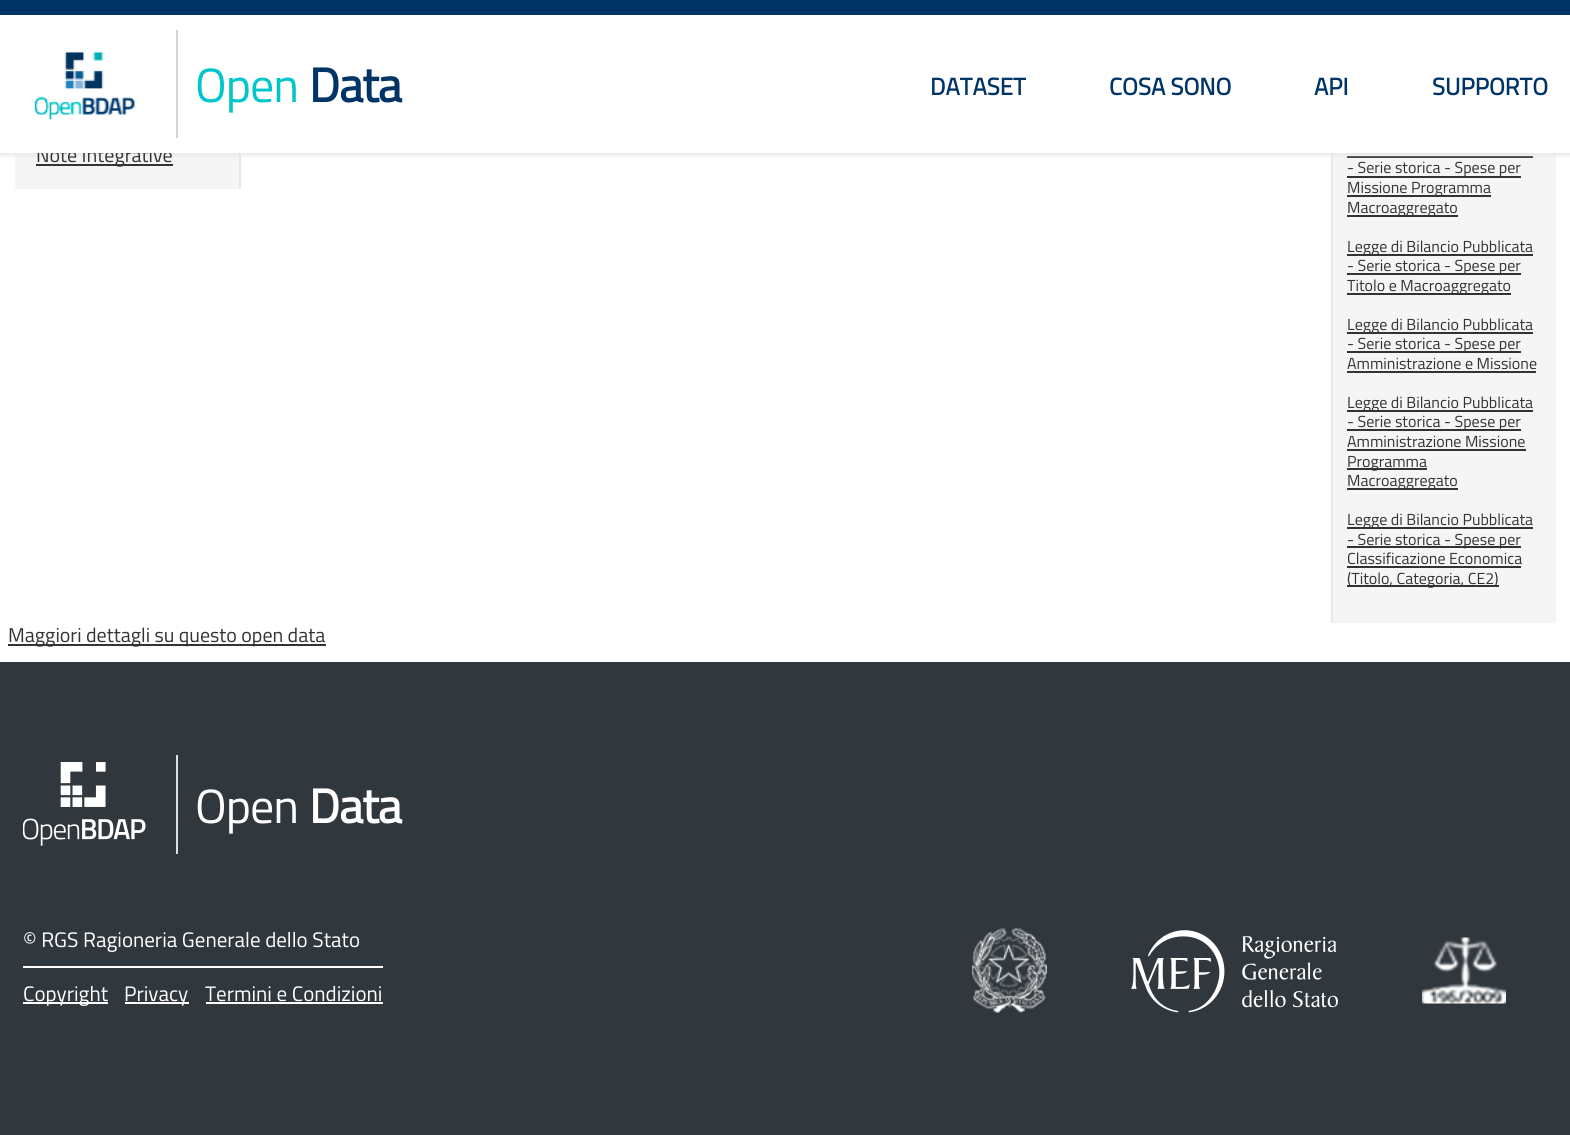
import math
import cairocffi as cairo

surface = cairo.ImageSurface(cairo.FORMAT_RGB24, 1570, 1135)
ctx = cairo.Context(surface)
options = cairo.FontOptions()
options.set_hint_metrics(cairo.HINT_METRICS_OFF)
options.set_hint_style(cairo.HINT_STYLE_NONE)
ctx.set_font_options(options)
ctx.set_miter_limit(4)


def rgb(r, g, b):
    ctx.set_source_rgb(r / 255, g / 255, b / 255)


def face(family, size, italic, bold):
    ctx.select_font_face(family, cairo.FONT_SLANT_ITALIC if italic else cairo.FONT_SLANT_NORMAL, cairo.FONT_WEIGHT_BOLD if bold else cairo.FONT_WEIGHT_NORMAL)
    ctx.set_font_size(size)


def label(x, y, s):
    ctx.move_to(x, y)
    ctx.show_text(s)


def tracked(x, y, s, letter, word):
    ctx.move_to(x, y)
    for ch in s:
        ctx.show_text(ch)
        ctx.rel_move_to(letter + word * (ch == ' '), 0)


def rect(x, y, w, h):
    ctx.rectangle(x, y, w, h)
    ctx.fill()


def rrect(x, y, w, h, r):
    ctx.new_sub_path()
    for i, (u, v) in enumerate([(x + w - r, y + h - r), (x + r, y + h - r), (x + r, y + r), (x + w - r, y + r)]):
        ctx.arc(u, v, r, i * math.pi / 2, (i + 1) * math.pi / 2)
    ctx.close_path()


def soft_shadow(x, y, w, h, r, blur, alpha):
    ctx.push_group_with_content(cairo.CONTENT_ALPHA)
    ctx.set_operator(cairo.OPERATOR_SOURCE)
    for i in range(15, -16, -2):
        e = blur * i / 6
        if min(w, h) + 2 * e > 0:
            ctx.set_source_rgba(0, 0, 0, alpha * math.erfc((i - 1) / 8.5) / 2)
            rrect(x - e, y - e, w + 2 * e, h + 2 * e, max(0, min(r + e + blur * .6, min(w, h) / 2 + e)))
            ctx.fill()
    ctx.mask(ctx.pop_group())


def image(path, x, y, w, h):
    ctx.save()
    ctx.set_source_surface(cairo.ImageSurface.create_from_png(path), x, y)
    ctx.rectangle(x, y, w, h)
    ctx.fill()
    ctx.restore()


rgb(255, 255, 255)
ctx.paint()
rgb(245, 245, 245)
rect(15, 153, 224, 36)
rgb(232, 232, 232)
rect(239, 153, 2, 36)
rgb(245, 245, 245)
rect(1333, 153, 223, 470)
rgb(232, 232, 232)
rect(1331, 153, 2, 470)
rgb(51, 51, 51)
rect(1347, 156, 186, 2)
rgb(229, 229, 229)
soft_shadow(-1, -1, 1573, 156, 0, 2, 1)
rgb(51, 51, 51)
rect(36, 164, 137, 2)
face('Titillium Web', 20, 0, 0)
label(36, 162, 'Note Integrative')
rgb(255, 255, 255)
rect(0, 15, 1570, 138)
rgb(0, 52, 102)
rect(0, 0, 1570, 15)
rgb(211, 211, 211)
rect(176, 30, 2, 108)
image('image0.png', 34, 52, 102, 68)
face('Titillium Web', 48, 0, 0)
rgb(0, 197, 203)
tracked(195, 102, 'Open', -1, 0)
face('Titillium Web', 48, 0, 1)
rgb(0, 52, 102)
tracked(309, 102, 'Data', -1, 0)
face('Titillium Web', 24, 0, 1)
label(930, 95, 'DATASET')
label(1109, 95, 'COSA SONO')
label(1314, 95, 'API')
label(1432, 95, 'SUPPORTO')
rgb(51, 51, 51)
rect(1347, 176, 174, 2)
face('Titillium Web', 16, 0, 0)
label(1347, 173, '- Serie storica - Spese per')
rect(1347, 195, 144, 2)
label(1347, 193, 'Missione Programma')
rect(1347, 215, 111, 2)
label(1347, 213, 'Macroaggregato')
rect(1347, 254, 186, 2)
label(1347, 252, 'Legge di Bilancio Pubblicata')
rect(1347, 273, 174, 2)
label(1347, 271, '- Serie storica - Spese per')
rect(1347, 293, 164, 2)
label(1347, 291, 'Titolo e Macroaggregato')
rect(1347, 332, 186, 2)
label(1347, 330, 'Legge di Bilancio Pubblicata')
rect(1347, 351, 174, 2)
label(1347, 349, '- Serie storica - Spese per')
label(1347, 369, 'Amministrazione e Missione')
rect(1347, 371, 189, 2)
rect(1347, 410, 186, 2)
label(1347, 408, 'Legge di Bilancio Pubblicata')
rect(1347, 429, 174, 2)
label(1347, 427, '- Serie storica - Spese per')
label(1347, 447, 'Amministrazione Missione')
rect(1347, 449, 179, 2)
rect(1347, 468, 80, 2)
label(1347, 467, 'Programma')
rect(1347, 488, 111, 2)
label(1347, 486, 'Macroaggregato')
rect(1347, 527, 186, 2)
label(1347, 525, 'Legge di Bilancio Pubblicata')
rect(1347, 546, 174, 2)
label(1347, 545, '- Serie storica - Spese per')
label(1347, 564, 'Classificazione Economica')
rect(1347, 566, 174, 2)
rect(1347, 585, 152, 2)
label(1347, 584, '(Titolo, Categoria, CE2)')
rect(8, 644, 318, 2)
face('Titillium Web', 20, 0, 0)
label(8, 642, 'Maggiori dettagli su questo open data')
rgb(48, 55, 61)
rect(0, 662, 1570, 473)
rgb(223, 223, 223)
rect(176, 755, 2, 99)
image('image1.png', 23, 762, 123, 84)
face('Titillium Web', 48, 0, 0)
rgb(255, 255, 255)
tracked(195, 823, 'Open', -1, 0)
face('Titillium Web', 48, 0, 1)
tracked(309, 823, 'Data', -1, 0)
rect(23, 966, 360, 2)
face('Titillium Web', 21, 0, 0)
label(23, 947, '© RGS Ragioneria Generale dello Stato')
rect(23, 1002, 85, 2)
label(23, 1001, 'Copyright')
rect(125, 1002, 64, 2)
label(124, 1001, 'Privacy')
label(205, 1001, 'Termini e Condizioni')
rect(206, 1002, 177, 2)
image('image2.png', 972, 928, 75, 85)
image('image3.png', 1131, 930, 207, 83)
image('image4.png', 1422, 937, 84, 67)
surface.write_to_png('render.png')
